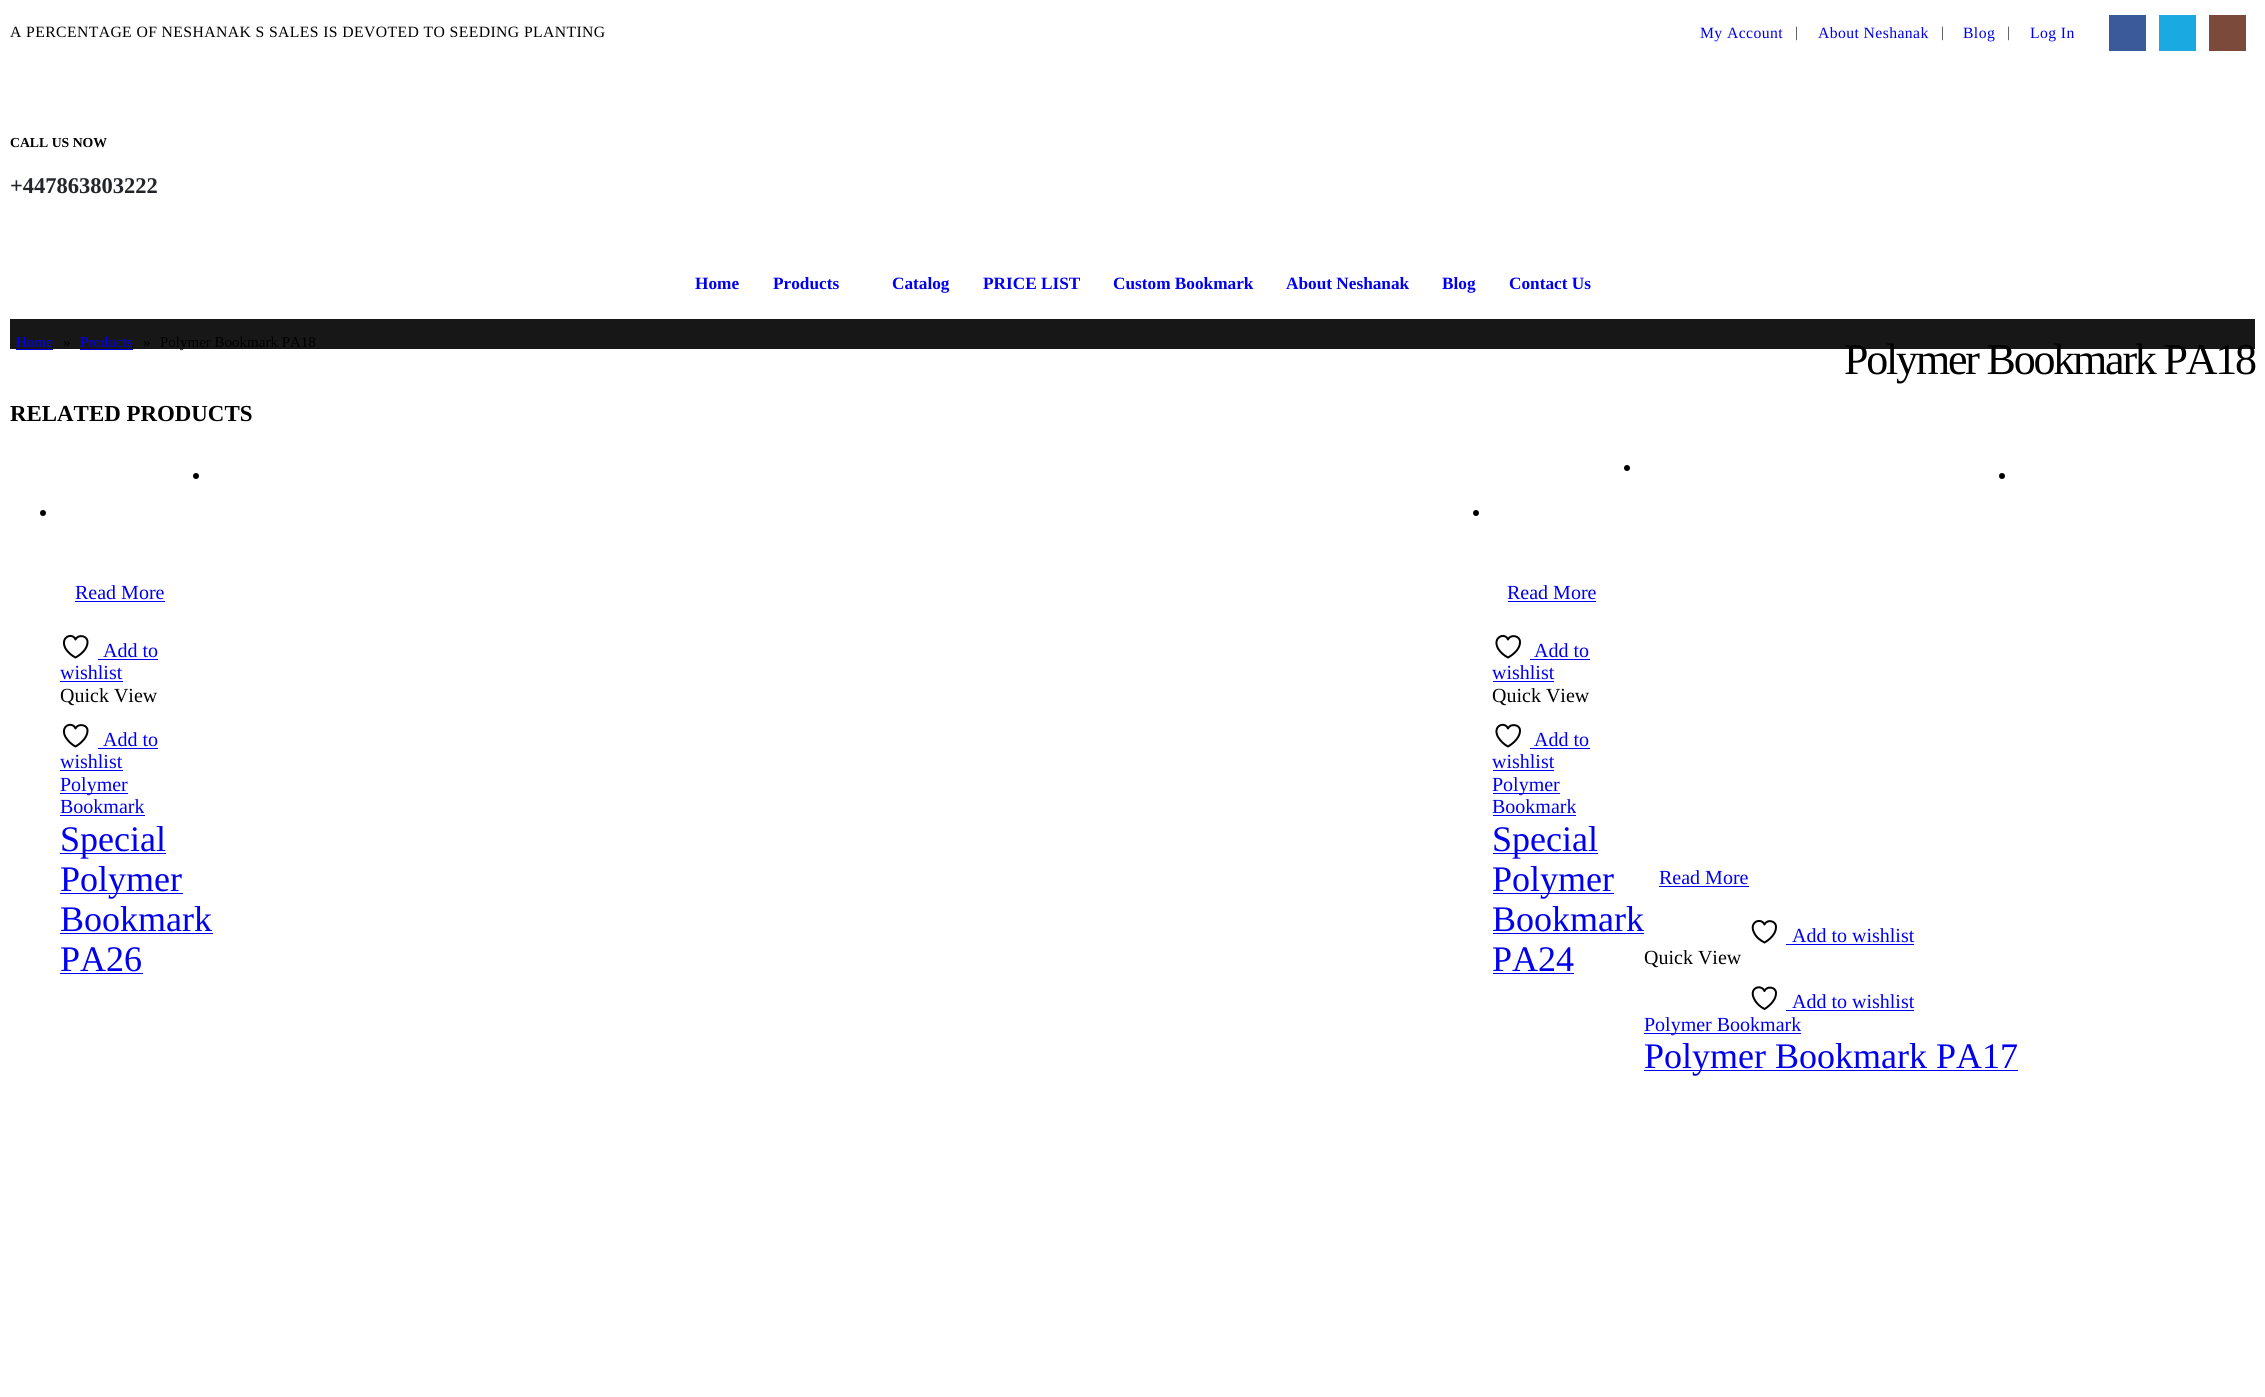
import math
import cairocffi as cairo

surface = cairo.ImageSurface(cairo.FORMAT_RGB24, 2265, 1397)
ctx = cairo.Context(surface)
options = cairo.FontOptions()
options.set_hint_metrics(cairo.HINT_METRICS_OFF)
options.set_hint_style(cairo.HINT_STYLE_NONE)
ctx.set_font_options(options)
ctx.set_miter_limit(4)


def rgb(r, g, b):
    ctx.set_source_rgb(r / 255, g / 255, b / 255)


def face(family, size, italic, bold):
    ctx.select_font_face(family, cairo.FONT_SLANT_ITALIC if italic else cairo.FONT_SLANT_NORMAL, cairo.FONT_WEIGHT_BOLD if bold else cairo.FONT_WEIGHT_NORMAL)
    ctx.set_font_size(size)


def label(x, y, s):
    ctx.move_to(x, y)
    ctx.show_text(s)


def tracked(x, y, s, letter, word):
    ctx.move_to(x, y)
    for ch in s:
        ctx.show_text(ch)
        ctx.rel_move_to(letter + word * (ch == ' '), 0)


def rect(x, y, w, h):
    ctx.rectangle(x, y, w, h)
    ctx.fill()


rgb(255, 255, 255)
ctx.paint()
face('Liberation Serif', 15.7, 0, 0)
rgb(0, 0, 0)
tracked(10, 37, 'A PERCENTAGE OF NESHANAK S SALES IS DEVOTED TO SEEDING PLANTING', 0.4, 0)
rgb(0, 0, 238)
tracked(1700, 38, 'My Account', 0.4, 0)
face('Liberation Serif', 15, 0, 0)
rgb(51, 51, 51)
tracked(1795, 37, '|', 0.4, 0)
face('Liberation Serif', 15.7, 0, 0)
rgb(0, 0, 238)
tracked(1818, 38, 'About Neshanak', 0.4, 0)
face('Liberation Serif', 15, 0, 0)
rgb(51, 51, 51)
tracked(1941, 37, '|', 0.4, 0)
face('Liberation Serif', 15.7, 0, 0)
rgb(0, 0, 238)
tracked(1963, 38, 'Blog', 0.4, 0)
face('Liberation Serif', 15, 0, 0)
rgb(51, 51, 51)
tracked(2007, 37, '|', 0.4, 0)
face('Liberation Serif', 15.7, 0, 0)
rgb(0, 0, 238)
tracked(2030, 38, 'Log In', 0.4, 0)
rgb(59, 90, 154)
rect(2109, 15, 37, 36)
rgb(26, 169, 225)
rect(2159, 15, 37, 36)
rgb(124, 74, 58)
rect(2209, 15, 37, 36)
face('Liberation Serif', 13.75, 0, 1)
rgb(0, 0, 0)
label(10, 147, 'CALL US NOW')
face('Liberation Serif', 22.5, 0, 1)
rgb(34, 37, 41)
label(10, 193, '+447863803222')
face('Liberation Serif', 17.25, 0, 1)
rgb(0, 0, 238)
label(695, 289, 'Home')
label(773, 289, 'Products')
label(892, 289, 'Catalog')
label(983, 289, 'PRICE LIST')
label(1113, 289, 'Custom Bookmark')
label(1286, 289, 'About Neshanak')
label(1442, 289, 'Blog')
label(1509, 289, 'Contact Us')
rgb(23, 23, 23)
rect(10, 319, 2245, 30)
face('Liberation Serif', 15, 0, 0)
rgb(0, 0, 238)
label(16, 347, 'Home')
rect(16, 349, 37, 1)
rgb(0, 0, 0)
label(63, 347, '»')
rgb(0, 0, 238)
label(80, 347, 'Products')
rect(80, 349, 53, 1)
rgb(0, 0, 0)
label(143, 347, '»')
label(160, 347, 'Polymer Bookmark PA18')
face('Liberation Serif', 44, 0, 0)
tracked(1844, 374, 'Polymer Bookmark PA18', -2.2, 0)
face('Liberation Serif', 22.9, 0, 1)
label(10, 421, 'RELATED PRODUCTS')
ctx.new_path()
ctx.arc(196, 476, 3, 0, 2 * math.pi)
ctx.fill()
ctx.arc(2002, 476, 3, 0, 2 * math.pi)
ctx.fill()
ctx.arc(43, 513, 3, 0, 2 * math.pi)
ctx.fill()
face('Liberation Serif', 20, 0, 0)
rgb(0, 0, 238)
label(75, 599, 'Read More')
rect(75, 601, 90, 1)
ctx.new_path()
ctx.move_to(87.5, 642)
ctx.curve_to(87.5, 635.5, 78, 634, 75.5, 639.5)
ctx.curve_to(72.5, 632, 59.5, 637, 65.5, 648.5)
ctx.curve_to(68, 652.5, 71.5, 655.5, 75.5, 657.5)
ctx.curve_to(75.5, 657.5, 87.5, 651.5, 87.5, 642)
ctx.close_path()
rgb(0, 0, 0)
ctx.set_line_cap(cairo.LINE_CAP_ROUND)
ctx.set_line_join(cairo.LINE_JOIN_ROUND)
ctx.stroke()
rgb(0, 0, 238)
label(103, 657, 'Add to')
rect(98, 659, 60, 1)
label(60, 679, 'wishlist')
rect(60, 681, 63, 1)
rgb(0, 0, 0)
label(60, 702, 'Quick View')
ctx.new_path()
ctx.move_to(87.5, 730.5)
ctx.curve_to(87.5, 724.5, 78, 723, 75.5, 728.5)
ctx.curve_to(72.5, 721, 59.5, 725.5, 65.5, 737)
ctx.curve_to(68, 741, 71.5, 744.5, 75.5, 746.5)
ctx.curve_to(75.5, 746.5, 87.5, 740, 87.5, 730.5)
ctx.close_path()
ctx.stroke()
rgb(0, 0, 238)
label(103, 746, 'Add to')
rect(98, 748, 60, 1)
label(60, 768, 'wishlist')
rect(60, 770, 63, 1)
rect(60, 793, 68, 1)
label(60, 791, 'Polymer')
label(60, 813, 'Bookmark')
rect(60, 815, 85, 1)
rect(60, 853, 106, 1)
face('Liberation Serif', 36, 0, 0)
label(60, 851, 'Special')
rect(60, 893, 123, 1)
label(60, 891, 'Polymer')
label(60, 931, 'Bookmark')
rect(60, 933, 153, 1)
label(60, 971, 'PA26')
rect(60, 973, 83, 1)
rgb(0, 0, 0)
ctx.new_path()
ctx.arc(1476, 513, 3, 0, 2 * math.pi)
ctx.fill()
face('Liberation Serif', 20, 0, 0)
rgb(0, 0, 238)
label(1507, 599, 'Read More')
rect(1508, 601, 88, 1)
ctx.new_path()
ctx.move_to(1520, 642)
ctx.curve_to(1520, 635.5, 1510.5, 634, 1508, 639.5)
ctx.curve_to(1505, 632, 1492, 637, 1498, 648.5)
ctx.curve_to(1500.5, 652.5, 1504, 655.5, 1508, 657.5)
ctx.curve_to(1508, 657.5, 1520, 651.5, 1520, 642)
ctx.close_path()
rgb(0, 0, 0)
ctx.stroke()
rgb(0, 0, 238)
label(1534, 657, 'Add to')
rect(1530, 659, 60, 1)
label(1492, 679, 'wishlist')
rect(1493, 681, 61, 1)
rgb(0, 0, 0)
label(1492, 702, 'Quick View')
ctx.new_path()
ctx.move_to(1520, 730.5)
ctx.curve_to(1520, 724.5, 1510.5, 723, 1508, 728.5)
ctx.curve_to(1505, 721, 1492, 725.5, 1498, 737)
ctx.curve_to(1500.5, 741, 1504, 744.5, 1508, 746.5)
ctx.curve_to(1508, 746.5, 1520, 740, 1520, 730.5)
ctx.close_path()
ctx.stroke()
rgb(0, 0, 238)
label(1534, 746, 'Add to')
rect(1530, 748, 60, 1)
label(1492, 768, 'wishlist')
rect(1493, 770, 61, 1)
rect(1493, 793, 67, 1)
label(1492, 791, 'Polymer')
label(1492, 813, 'Bookmark')
rect(1493, 815, 83, 1)
rect(1493, 853, 105, 1)
face('Liberation Serif', 36, 0, 0)
label(1492, 851, 'Special')
rect(1493, 893, 121, 1)
label(1492, 891, 'Polymer')
label(1492, 931, 'Bookmark')
rect(1493, 933, 151, 1)
label(1492, 971, 'PA24')
rect(1493, 973, 81, 1)
rgb(0, 0, 0)
ctx.new_path()
ctx.arc(1627, 468, 3, 0, 2 * math.pi)
ctx.fill()
face('Liberation Serif', 20, 0, 0)
rgb(0, 0, 238)
label(1659, 884, 'Read More')
rect(1659, 886, 90, 1)
ctx.new_path()
ctx.move_to(1776, 927)
ctx.curve_to(1776, 920.5, 1767, 919, 1764.5, 924.5)
ctx.curve_to(1761, 917, 1748, 922, 1754.5, 933.5)
ctx.curve_to(1756.5, 937.5, 1760.5, 940.5, 1764.5, 942.5)
ctx.curve_to(1764.5, 942.5, 1776, 936.5, 1776, 927)
ctx.close_path()
rgb(0, 0, 0)
ctx.stroke()
rgb(0, 0, 238)
label(1792, 942, 'Add to wishlist')
rect(1786, 944, 128, 1)
rgb(0, 0, 0)
label(1644, 964, 'Quick View')
ctx.new_path()
ctx.move_to(1776, 993)
ctx.curve_to(1776, 987, 1767, 985.5, 1764.5, 991)
ctx.curve_to(1761, 983.5, 1748, 988, 1754.5, 999.5)
ctx.curve_to(1756.5, 1003.5, 1760.5, 1007, 1764.5, 1009)
ctx.curve_to(1764.5, 1009, 1776, 1002.5, 1776, 993)
ctx.close_path()
ctx.stroke()
rgb(0, 0, 238)
label(1792, 1008, 'Add to wishlist')
rect(1786, 1010, 128, 1)
rect(1644, 1033, 157, 1)
label(1644, 1031, 'Polymer Bookmark')
rect(1644, 1070, 374, 1)
face('Liberation Serif', 36, 0, 0)
label(1644, 1068, 'Polymer Bookmark PA17')
surface.write_to_png('render.png')
